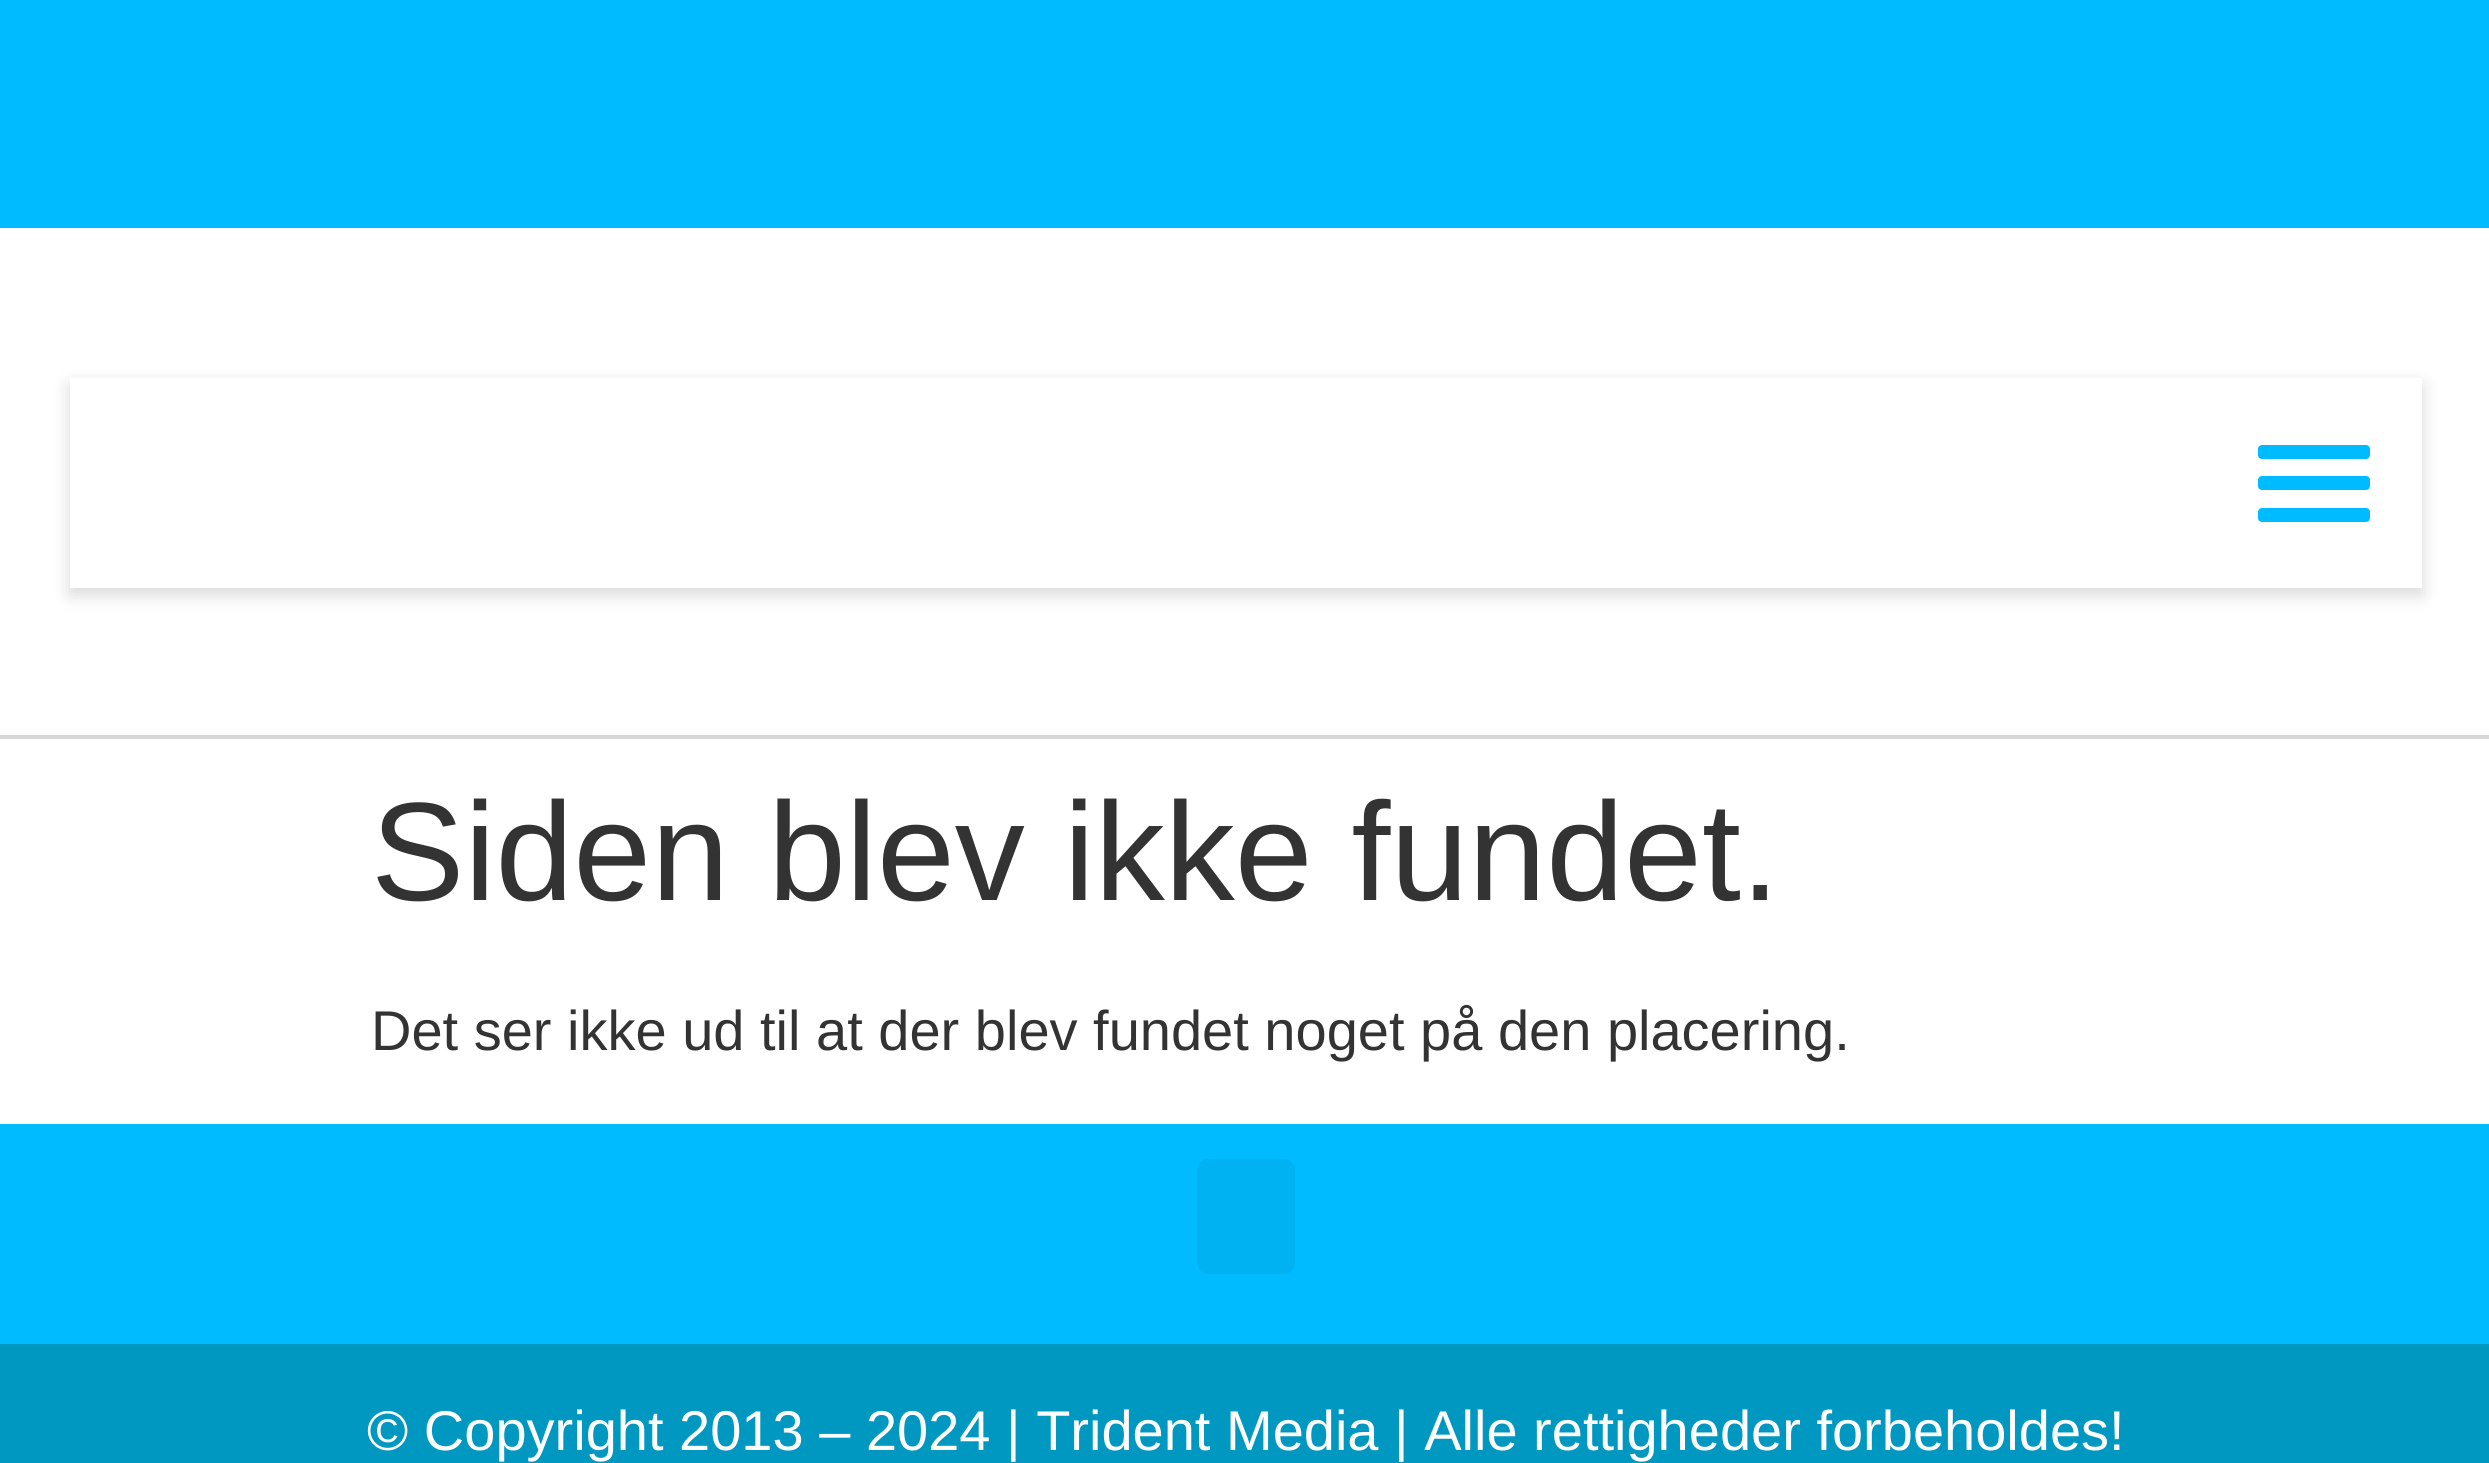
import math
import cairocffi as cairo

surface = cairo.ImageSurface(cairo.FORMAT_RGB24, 2489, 1463)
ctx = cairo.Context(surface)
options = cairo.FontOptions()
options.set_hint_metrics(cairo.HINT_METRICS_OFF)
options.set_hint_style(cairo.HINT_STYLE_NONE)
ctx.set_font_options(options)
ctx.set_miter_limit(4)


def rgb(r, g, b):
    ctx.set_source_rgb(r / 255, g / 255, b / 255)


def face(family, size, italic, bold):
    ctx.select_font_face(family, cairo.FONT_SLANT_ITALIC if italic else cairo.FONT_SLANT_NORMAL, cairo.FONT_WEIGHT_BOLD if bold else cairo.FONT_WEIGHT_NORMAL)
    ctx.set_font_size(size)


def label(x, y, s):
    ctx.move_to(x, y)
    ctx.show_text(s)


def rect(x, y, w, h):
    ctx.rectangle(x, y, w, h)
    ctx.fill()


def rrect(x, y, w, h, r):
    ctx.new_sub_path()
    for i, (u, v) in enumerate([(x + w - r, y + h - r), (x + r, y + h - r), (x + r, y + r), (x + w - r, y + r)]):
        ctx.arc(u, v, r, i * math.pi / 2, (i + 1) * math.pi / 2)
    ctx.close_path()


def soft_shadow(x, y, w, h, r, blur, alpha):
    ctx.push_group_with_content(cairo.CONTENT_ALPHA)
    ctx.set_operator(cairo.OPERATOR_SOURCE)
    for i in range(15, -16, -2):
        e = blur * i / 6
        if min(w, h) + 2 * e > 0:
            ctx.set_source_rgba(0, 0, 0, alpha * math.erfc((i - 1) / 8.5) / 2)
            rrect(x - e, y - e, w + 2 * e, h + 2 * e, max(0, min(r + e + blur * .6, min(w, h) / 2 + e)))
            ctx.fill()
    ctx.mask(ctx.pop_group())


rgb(255, 255, 255)
ctx.paint()
rgb(0, 187, 255)
rect(0, 0, 2489, 228)
rgb(216, 216, 216)
rect(0, 735, 2489, 4)
ctx.save()
ctx.set_fill_rule(cairo.FILL_RULE_EVEN_ODD)
ctx.new_path()
ctx.move_to(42, 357)
ctx.line_to(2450, 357)
ctx.line_to(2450, 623)
ctx.line_to(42, 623)
ctx.close_path()
ctx.move_to(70, 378)
ctx.line_to(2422, 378)
ctx.line_to(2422, 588)
ctx.line_to(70, 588)
ctx.close_path()
ctx.clip()
rgb(0, 0, 0)
soft_shadow(70, 385, 2352, 210, 0, 9, 0.15)
ctx.restore()
rgb(0, 187, 255)
rrect(2258, 445, 112, 14, 4)
ctx.fill()
rrect(2258, 476, 112, 14, 4)
ctx.fill()
rrect(2258, 508, 112, 14, 4)
ctx.fill()
face('Liberation Sans', 140, 0, 0)
rgb(51, 51, 51)
label(371, 900, 'Siden blev ikke fundet.')
face('Liberation Sans', 56, 0, 0)
label(371, 1050, 'Det ser ikke ud til at der blev fundet noget på den placering.')
rgb(0, 187, 255)
rect(0, 1124, 2489, 220)
rgb(0, 178, 242)
rrect(1197, 1159, 98, 115, 11)
ctx.fill()
rgb(0, 152, 193)
rect(0, 1344, 2489, 119)
rgb(255, 255, 255)
label(367, 1450, '© Copyright 2013 – 2024 | Trident Media | Alle rettigheder forbeholdes!')
surface.write_to_png('render.png')
